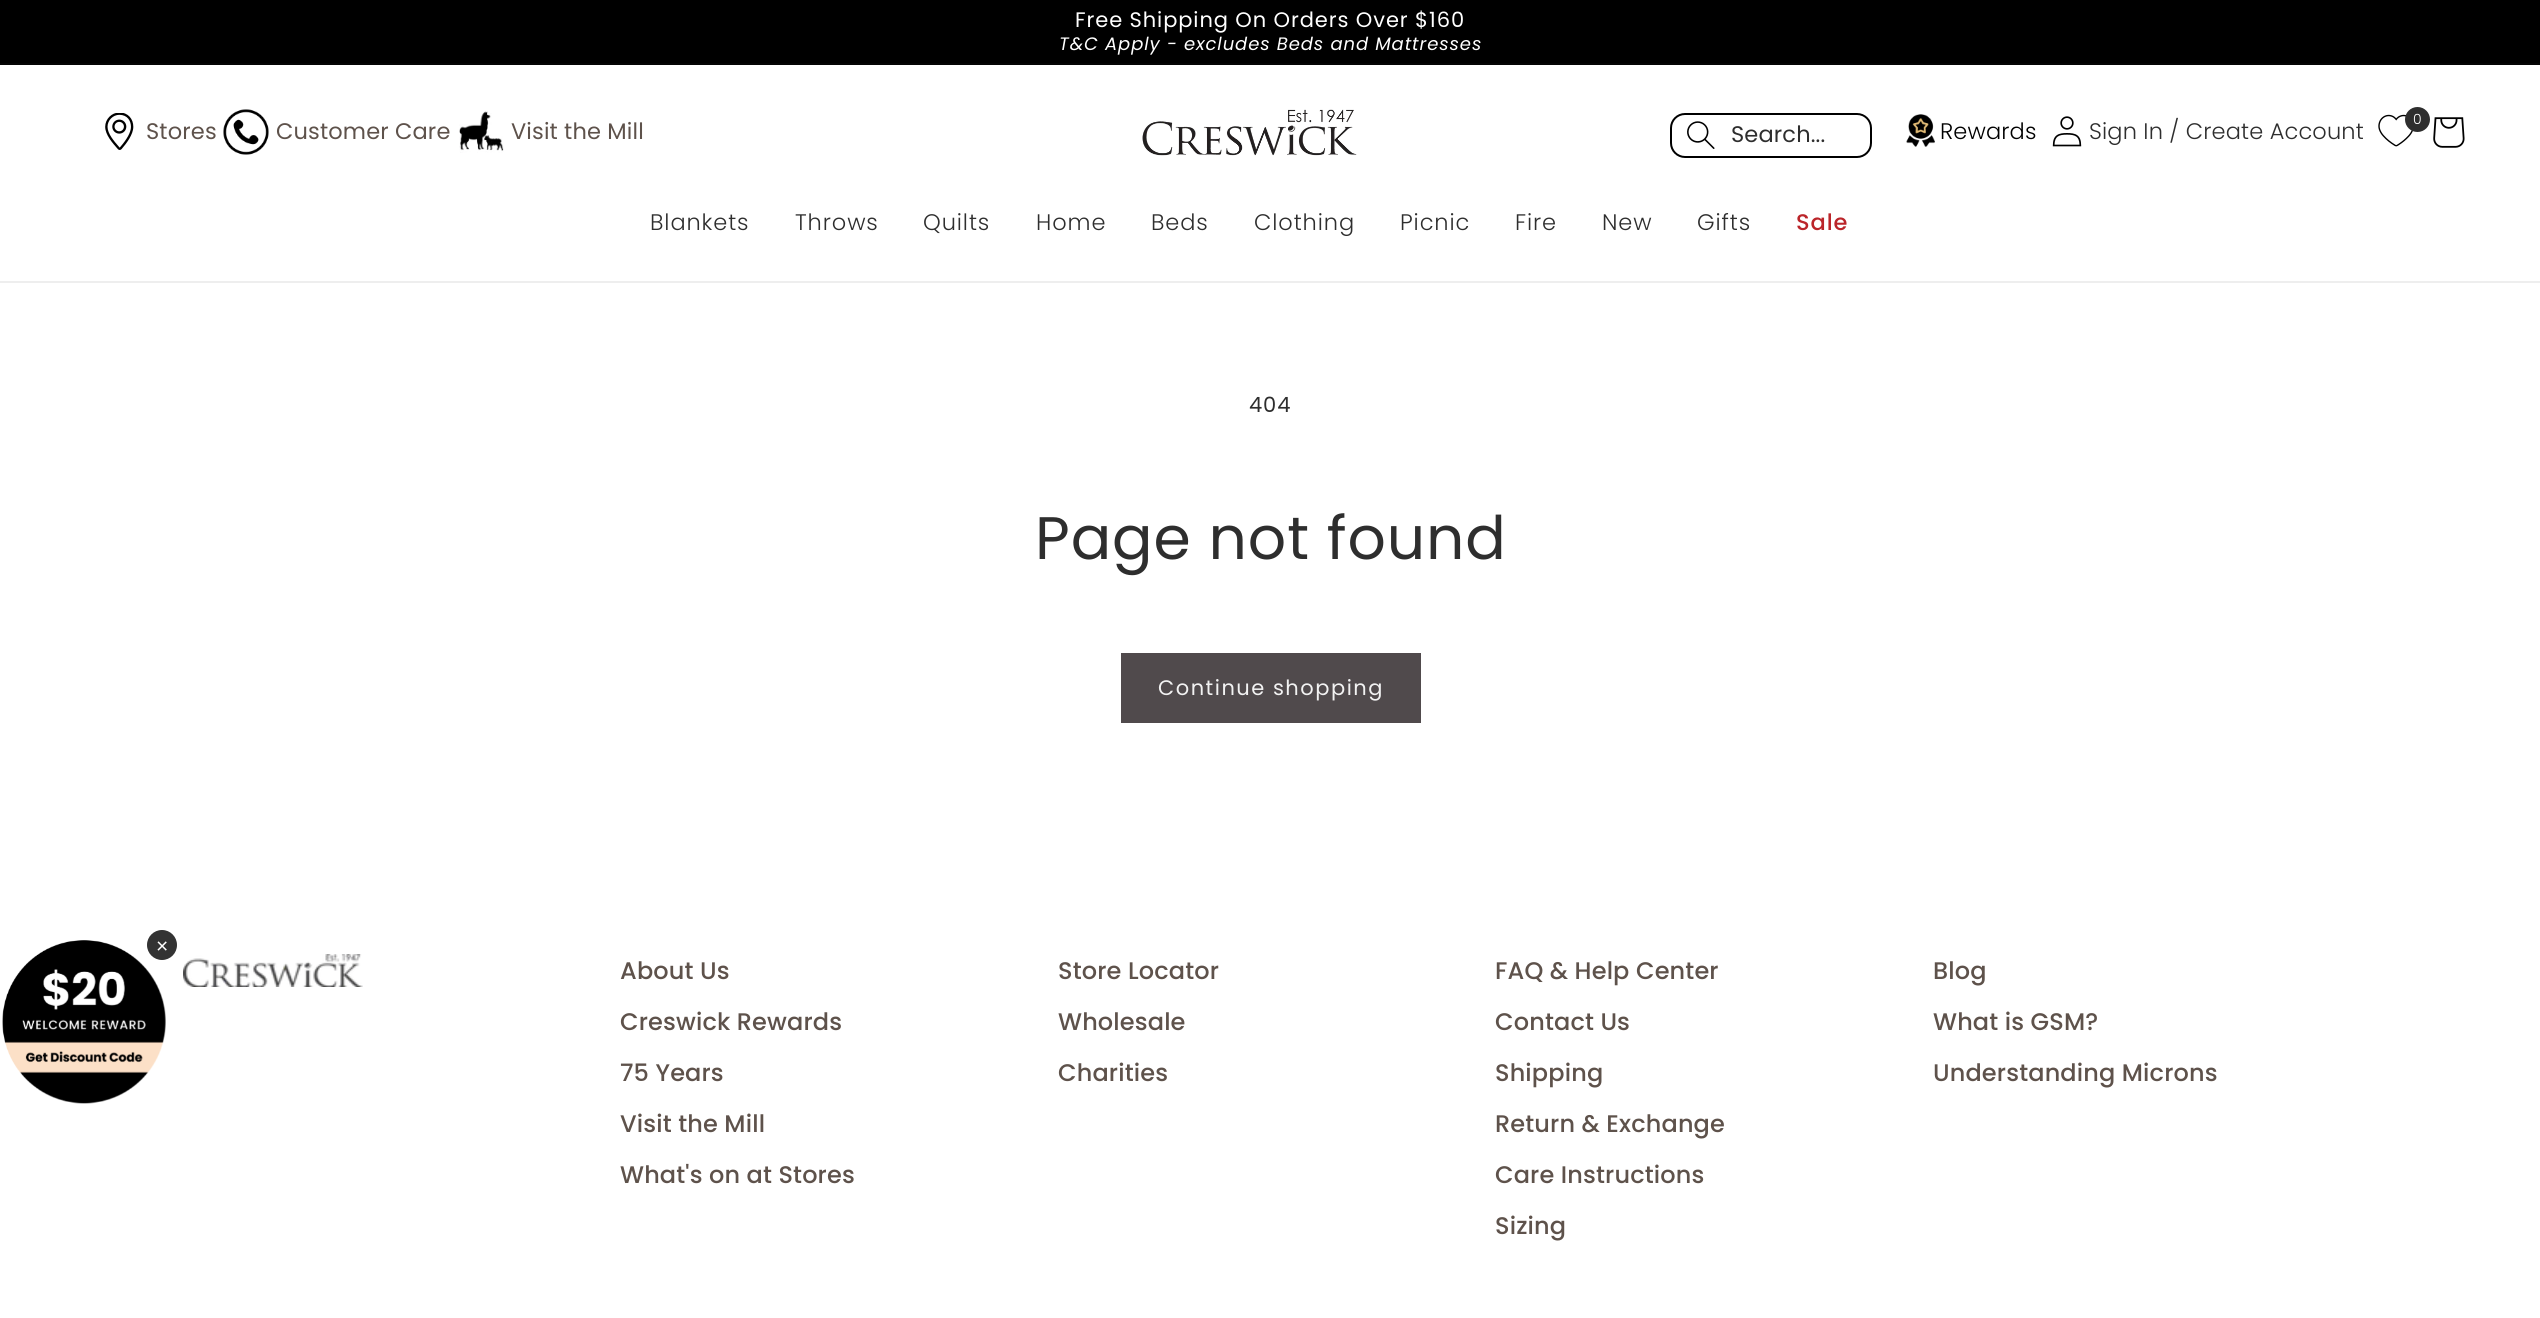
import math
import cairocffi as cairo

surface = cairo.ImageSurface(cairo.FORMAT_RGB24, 2540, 1318)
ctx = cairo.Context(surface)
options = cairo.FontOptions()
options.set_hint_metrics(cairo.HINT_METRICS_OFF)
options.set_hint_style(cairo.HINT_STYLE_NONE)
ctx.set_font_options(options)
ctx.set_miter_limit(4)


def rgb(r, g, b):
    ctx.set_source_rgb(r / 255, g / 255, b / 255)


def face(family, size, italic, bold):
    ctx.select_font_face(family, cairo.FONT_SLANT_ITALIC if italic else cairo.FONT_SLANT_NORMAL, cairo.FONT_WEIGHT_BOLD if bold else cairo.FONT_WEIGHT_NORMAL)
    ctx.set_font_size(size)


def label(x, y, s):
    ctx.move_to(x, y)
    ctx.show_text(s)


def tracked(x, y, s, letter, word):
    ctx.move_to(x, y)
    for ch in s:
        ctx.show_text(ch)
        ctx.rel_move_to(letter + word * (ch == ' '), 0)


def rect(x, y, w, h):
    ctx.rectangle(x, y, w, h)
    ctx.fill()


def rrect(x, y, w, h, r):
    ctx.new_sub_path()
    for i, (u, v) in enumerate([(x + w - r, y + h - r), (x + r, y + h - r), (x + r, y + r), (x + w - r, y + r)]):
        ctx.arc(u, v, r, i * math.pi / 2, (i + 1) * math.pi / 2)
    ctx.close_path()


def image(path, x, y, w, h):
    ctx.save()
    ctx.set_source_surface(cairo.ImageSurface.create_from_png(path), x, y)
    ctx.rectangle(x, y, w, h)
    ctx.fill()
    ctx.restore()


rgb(255, 255, 255)
ctx.paint()
rgb(0, 0, 0)
rect(0, 0, 2540, 63)
rgb(4, 4, 4)
rect(0, 63, 2540, 2)
face('Poppins', 21, 0, 0)
rgb(255, 255, 255)
tracked(1075, 27, 'Free Shipping On Orders Over $160', 0.9, 0)
face('Poppins', 18, 1, 0)
tracked(1059, 50, 'T&C Apply - excludes Beds and Mattresses', 0.9, 0)
rgb(238, 238, 238)
rect(0, 281, 2540, 2)
image('image0.png', 105, 113, 29, 37)
face('Poppins', 22.5, 0, 0)
rgb(94, 82, 75)
tracked(146, 139, 'Stores', 0.15, 0)
image('image1.png', 223, 109, 46, 46)
tracked(276, 139, 'Customer Care', 0.15, 0)
image('image2.png', 459, 110, 45, 43)
tracked(511, 139, 'Visit the Mill', 0.15, 0)
image('image3.png', 1142, 109, 215, 47)
rrect(1671, 114, 200, 43, 14)
rgb(0, 0, 0)
ctx.stroke()
image('image4.png', 1687, 121, 28, 28)
rgb(46, 46, 46)
tracked(1731, 142, 'Search...', 0.15, 0)
image('image5.png', 1906, 114, 29, 33)
face('Poppins Light', 22.5, 0, 0)
rgb(0, 0, 0)
tracked(1940, 139, 'Rewards', 0.15, 0)
image('image6.png', 2052, 116, 30, 31)
rgb(46, 46, 46)
tracked(2089, 139, 'Sign In / Create Account', 0.15, 0)
image('image7.png', 2378, 114, 35, 33)
ctx.arc(2417.5, 119.5, 12.5, 0, 2 * math.pi)
ctx.fill()
face('Poppins Light', 14, 0, 0)
rgb(255, 255, 255)
tracked(2413, 124, '0', 0.15, 0)
image('image8.png', 2433, 117, 32, 31)
face('Poppins Light', 22.5, 0, 0)
rgb(46, 46, 46)
tracked(650, 230, 'Blankets', 0.9, 0)
tracked(795, 230, 'Throws', 0.9, 0)
tracked(923, 230, 'Quilts', 0.9, 0)
tracked(1036, 230, 'Home', 0.9, 0)
tracked(1151, 230, 'Beds', 0.9, 0)
tracked(1254, 230, 'Clothing', 0.9, 0)
tracked(1400, 230, 'Picnic', 0.9, 0)
tracked(1515, 230, 'Fire', 0.9, 0)
tracked(1602, 230, 'New', 0.9, 0)
tracked(1697, 230, 'Gifts', 0.9, 0)
face('Poppins Medium', 22.5, 0, 0)
rgb(187, 37, 42)
tracked(1796, 230, 'Sale', 0.9, 0)
face('Poppins', 21, 0, 0)
rgb(46, 46, 46)
tracked(1249, 412, '404', 0.9, 0)
face('Poppins', 60, 0, 0)
tracked(1035, 559, 'Page not found', 0.9, 0)
rgb(80, 74, 76)
rect(1121, 653, 300, 70)
face('Poppins', 21, 0, 0)
rgb(242, 242, 242)
tracked(1158, 695, 'Continue shopping', 1.5, 0)
image('image9.png', 2, 940, 164, 164)
rgb(51, 51, 51)
ctx.arc(162, 945, 15, 0, 2 * math.pi)
ctx.fill()
face('Liberation Sans', 21, 0, 0)
rgb(255, 255, 255)
label(156, 953, '×')
image('image10.png', 183, 954, 180, 33)
face('Poppins Medium', 24, 0, 0)
rgb(94, 82, 75)
tracked(620, 979, 'About Us', 0.15, 0)
tracked(620, 1030, 'Creswick Rewards', 0.15, 0)
tracked(620, 1081, '75 Years', 0.15, 0)
tracked(620, 1132, 'Visit the Mill', 0.15, 0)
tracked(620, 1183, 'What\'s on at Stores', 0.15, 0)
tracked(1058, 979, 'Store Locator', 0.15, 0)
tracked(1058, 1030, 'Wholesale', 0.15, 0)
tracked(1058, 1081, 'Charities', 0.15, 0)
tracked(1495, 979, 'FAQ & Help Center', 0.15, 0)
tracked(1495, 1030, 'Contact Us', 0.15, 0)
tracked(1495, 1081, 'Shipping', 0.15, 0)
tracked(1495, 1132, 'Return & Exchange', 0.15, 0)
tracked(1495, 1183, 'Care Instructions', 0.15, 0)
tracked(1495, 1234, 'Sizing', 0.15, 0)
tracked(1933, 979, 'Blog', 0.15, 0)
tracked(1933, 1030, 'What is GSM?', 0.15, 0)
tracked(1933, 1081, 'Understanding Microns', 0.15, 0)
surface.write_to_png('render.png')
